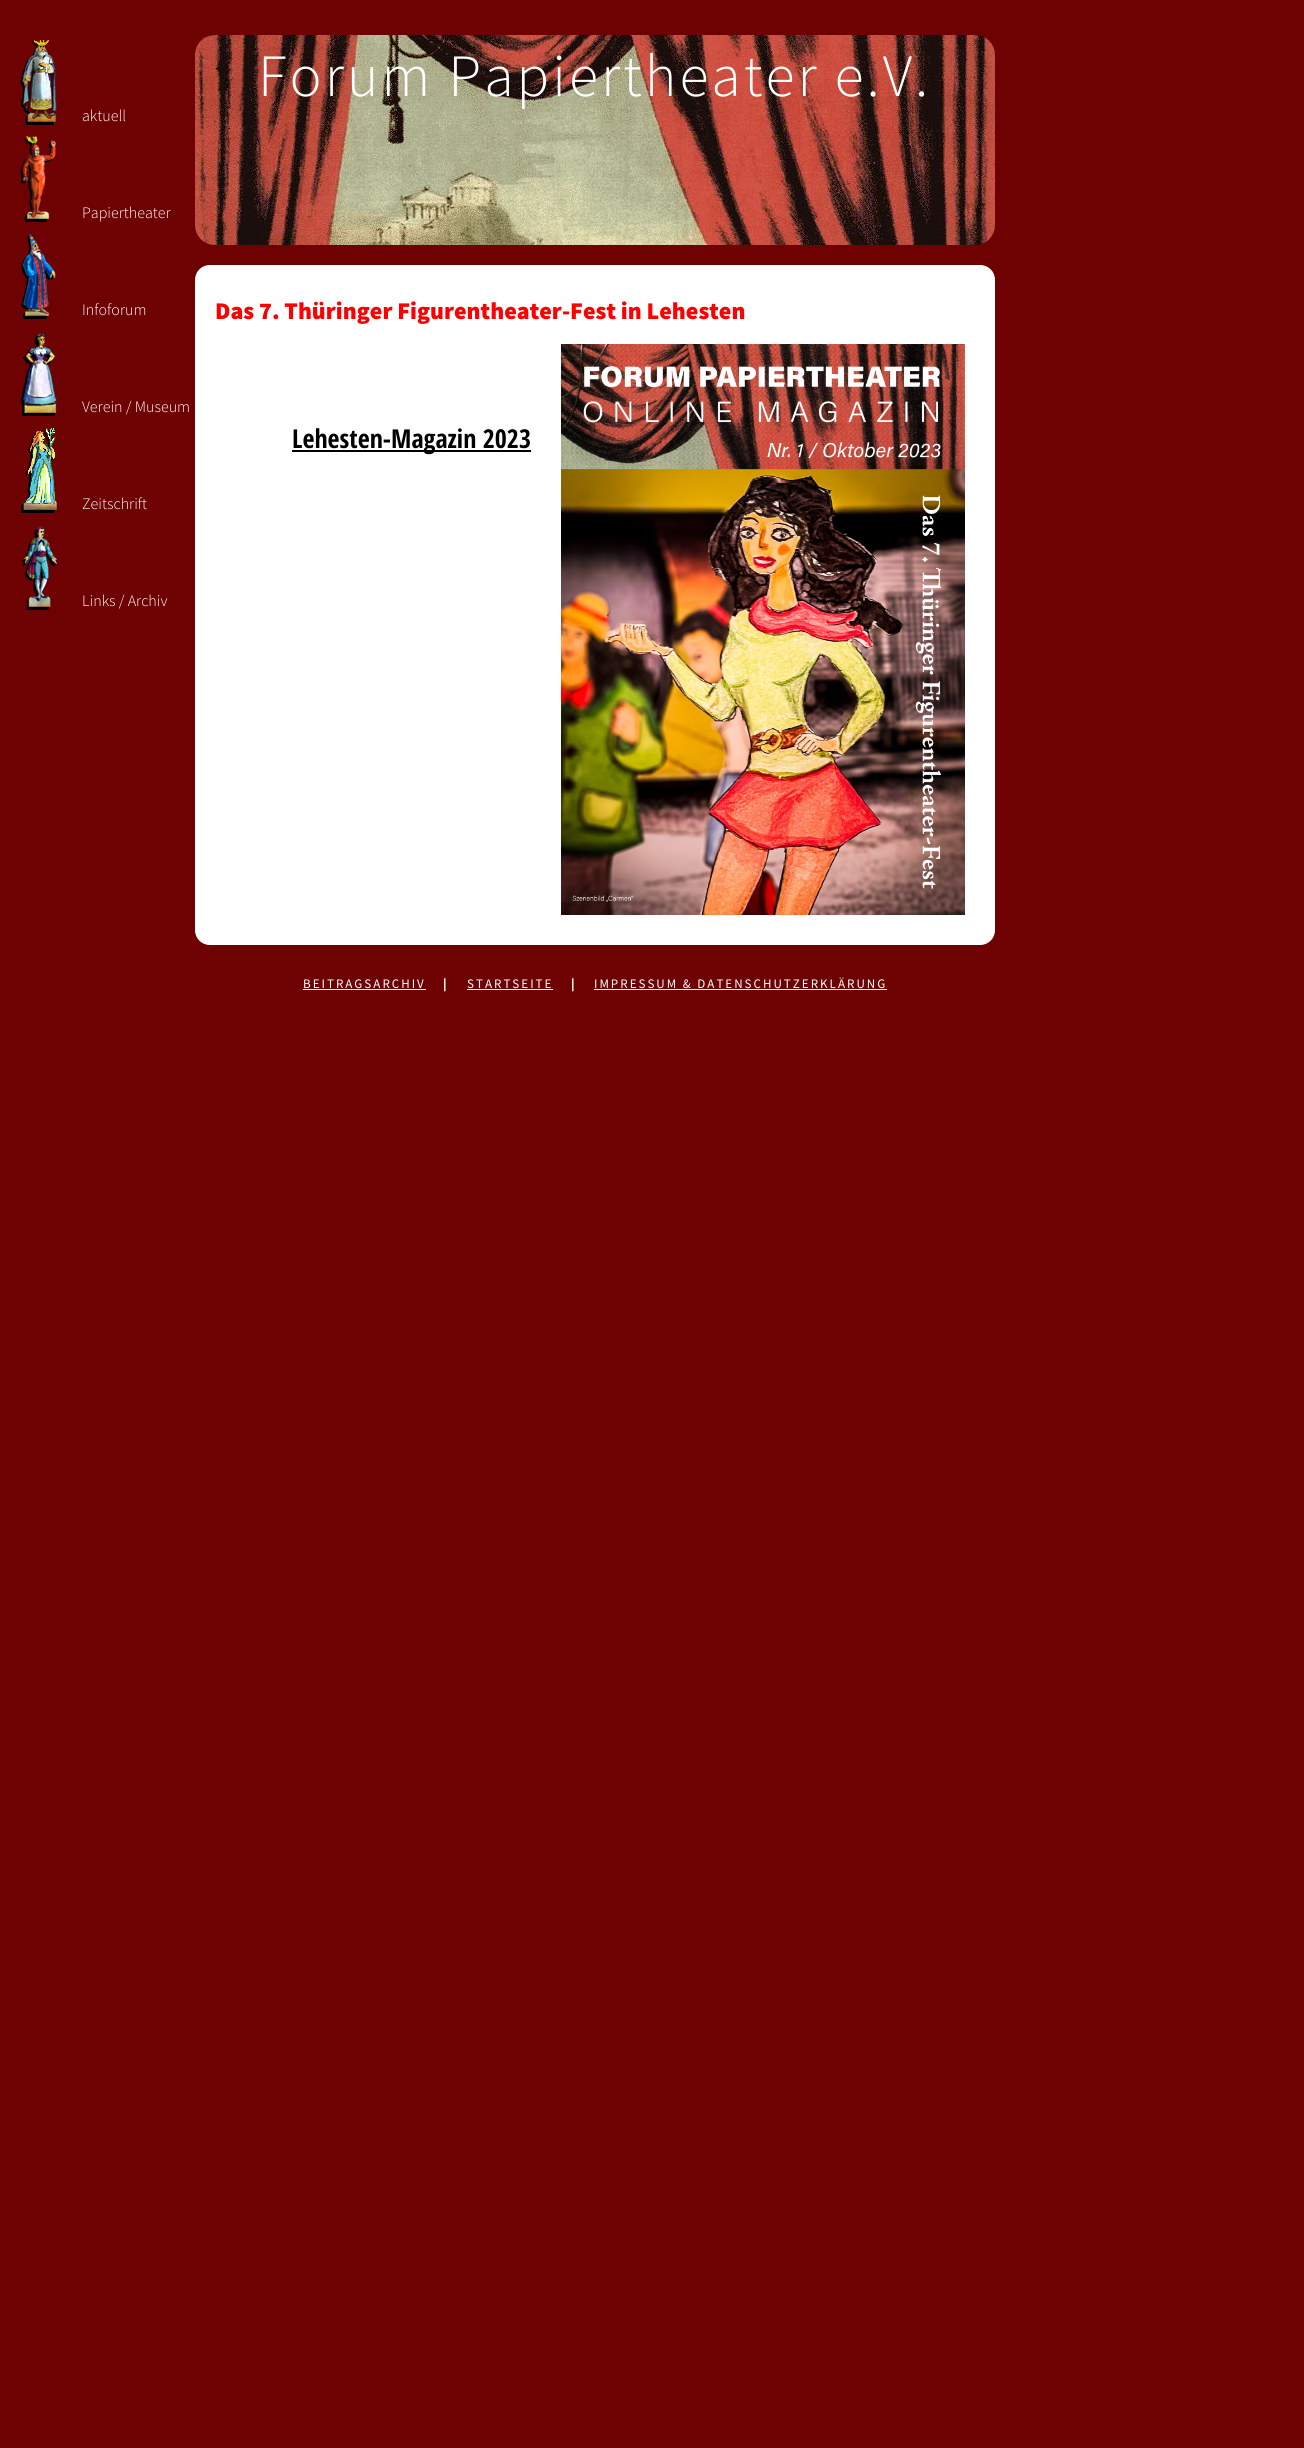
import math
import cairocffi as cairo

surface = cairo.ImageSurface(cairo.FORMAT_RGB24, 1304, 2448)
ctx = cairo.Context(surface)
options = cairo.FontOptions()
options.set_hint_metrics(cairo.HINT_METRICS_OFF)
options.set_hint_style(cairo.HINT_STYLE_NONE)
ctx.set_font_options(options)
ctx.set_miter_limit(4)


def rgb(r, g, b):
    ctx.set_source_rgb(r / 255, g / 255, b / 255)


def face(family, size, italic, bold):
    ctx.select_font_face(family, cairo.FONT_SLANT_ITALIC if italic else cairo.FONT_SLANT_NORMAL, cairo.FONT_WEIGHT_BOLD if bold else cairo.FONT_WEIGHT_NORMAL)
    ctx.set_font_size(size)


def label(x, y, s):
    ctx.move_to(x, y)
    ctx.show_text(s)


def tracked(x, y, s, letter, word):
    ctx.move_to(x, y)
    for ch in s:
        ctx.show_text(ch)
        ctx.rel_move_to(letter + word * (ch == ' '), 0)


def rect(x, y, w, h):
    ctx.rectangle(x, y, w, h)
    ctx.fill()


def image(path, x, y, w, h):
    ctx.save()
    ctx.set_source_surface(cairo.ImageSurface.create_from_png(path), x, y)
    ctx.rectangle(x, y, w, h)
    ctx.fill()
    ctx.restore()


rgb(110, 1, 1)
ctx.paint()
image('image0.png', 20, 40, 37, 85)
face('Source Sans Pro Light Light', 16, 0, 0)
rgb(255, 255, 255)
label(82, 121, 'aktuell')
image('image1.png', 20, 136, 37, 86)
label(82, 218, 'Papiertheater')
image('image2.png', 20, 233, 36, 86)
label(82, 315, 'Infoforum')
image('image3.png', 20, 333, 37, 83)
label(82, 412, 'Verein / Museum')
image('image4.png', 21, 427, 36, 86)
label(82, 509, 'Zeitschrift')
image('image5.png', 21, 526, 36, 84)
label(82, 606, 'Links / Archiv')
image('image6.png', 195, 35, 800, 210)
face('Source Sans Pro Light Light', 60, 0, 0)
tracked(258, 96, 'Forum Papiertheater e.V.', 3, 0)
ctx.new_path()
ctx.move_to(210, 265)
ctx.line_to(980, 265)
ctx.curve_to(988.5, 265, 995, 271.5, 995, 280)
ctx.line_to(995, 336)
ctx.line_to(195, 336)
ctx.line_to(195, 280)
ctx.curve_to(195, 271.5, 201.5, 265, 210, 265)
ctx.close_path()
ctx.fill()
face('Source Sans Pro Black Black', 24, 0, 0)
rgb(255, 0, 0)
label(215, 319, 'Das 7. Thüringer Figurentheater-Fest in Lehesten')
rgb(255, 255, 255)
ctx.new_path()
ctx.move_to(195, 336)
ctx.line_to(995, 336)
ctx.line_to(995, 930)
ctx.curve_to(995, 938.5, 988.5, 945, 980, 945)
ctx.line_to(210, 945)
ctx.curve_to(201.5, 945, 195, 938.5, 195, 930)
ctx.close_path()
ctx.fill()
rgb(0, 0, 0)
rect(292, 450, 239, 2)
face('Open Sans Condensed', 26, 0, 1)
label(292, 448, 'Lehesten-Magazin 2023')
image('image7.png', 561, 344, 404, 571)
face('Source Sans Pro', 13, 0, 0)
rgb(255, 255, 255)
tracked(303, 988, 'BEITRAGSARCHIV', 2, 0)
rect(303, 989, 123, 1)
face('Source Sans Pro Black Black', 13, 0, 0)
tracked(443, 988, '|', 2, 0)
face('Source Sans Pro', 13, 0, 0)
tracked(467, 988, 'STARTSEITE', 2, 0)
rect(467, 989, 86, 1)
face('Source Sans Pro Black Black', 13, 0, 0)
tracked(571, 988, '|', 2, 0)
face('Source Sans Pro', 13, 0, 0)
tracked(594, 988, 'IMPRESSUM & DATENSCHUTZERKLÄRUNG', 2, 0)
rect(594, 989, 293, 1)
surface.write_to_png('render.png')
